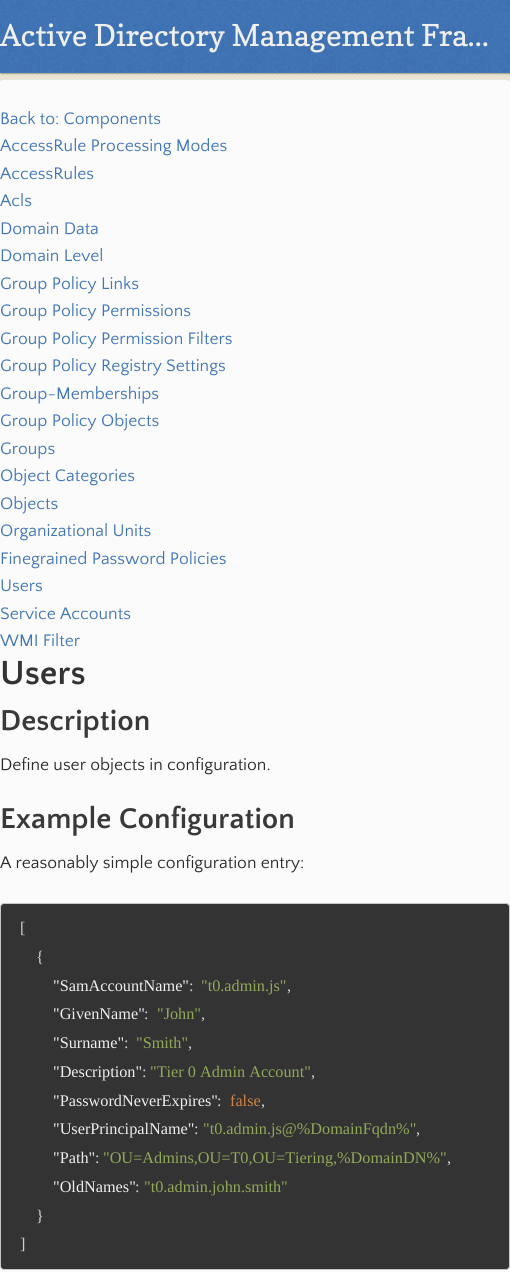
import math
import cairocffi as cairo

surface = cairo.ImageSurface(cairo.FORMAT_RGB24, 510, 1272)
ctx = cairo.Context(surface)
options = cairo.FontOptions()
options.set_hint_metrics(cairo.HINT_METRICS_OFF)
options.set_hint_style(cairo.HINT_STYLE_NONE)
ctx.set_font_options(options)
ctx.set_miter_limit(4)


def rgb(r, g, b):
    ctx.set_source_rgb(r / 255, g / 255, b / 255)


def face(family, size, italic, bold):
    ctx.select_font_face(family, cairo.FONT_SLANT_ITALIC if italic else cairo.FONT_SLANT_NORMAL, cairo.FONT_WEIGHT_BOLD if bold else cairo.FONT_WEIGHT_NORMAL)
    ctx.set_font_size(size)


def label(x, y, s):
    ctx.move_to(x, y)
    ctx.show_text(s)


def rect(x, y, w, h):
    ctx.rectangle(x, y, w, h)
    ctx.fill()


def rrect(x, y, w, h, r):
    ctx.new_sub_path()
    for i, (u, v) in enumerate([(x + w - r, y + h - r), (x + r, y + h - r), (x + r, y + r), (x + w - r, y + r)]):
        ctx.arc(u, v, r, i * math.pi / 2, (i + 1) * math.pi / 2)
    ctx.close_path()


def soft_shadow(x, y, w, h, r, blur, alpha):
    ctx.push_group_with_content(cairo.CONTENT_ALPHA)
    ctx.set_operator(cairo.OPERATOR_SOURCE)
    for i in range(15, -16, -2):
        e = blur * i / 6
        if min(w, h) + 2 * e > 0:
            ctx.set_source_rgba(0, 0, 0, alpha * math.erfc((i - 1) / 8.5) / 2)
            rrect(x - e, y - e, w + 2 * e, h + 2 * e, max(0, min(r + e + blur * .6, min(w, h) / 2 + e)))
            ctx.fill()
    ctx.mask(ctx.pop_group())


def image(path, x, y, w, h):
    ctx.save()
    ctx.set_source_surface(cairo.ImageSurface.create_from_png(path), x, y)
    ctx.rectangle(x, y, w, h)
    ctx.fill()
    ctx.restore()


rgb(255, 255, 255)
ctx.paint()
image('image0.png', 0, 73, 510, 9)
rgb(0, 0, 0)
soft_shadow(1, 0, 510, 73, 0, 1, 0.75)
rgb(66, 118, 182)
rect(0, 72, 510, 1)
image('image1.png', 0, 0, 510, 72)
face('Copse', 30, 0, 0)
rgb(239, 239, 239)
label(0, 46, 'Active Directory Management Fra…')
rgb(251, 251, 251)
ctx.new_path()
ctx.move_to(4, 80)
ctx.line_to(506, 80)
ctx.curve_to(508, 80, 510, 81, 510, 82)
ctx.line_to(510, 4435)
ctx.curve_to(510, 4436, 508, 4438, 506, 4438)
ctx.line_to(4, 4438)
ctx.curve_to(2, 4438, 0, 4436, 0, 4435)
ctx.line_to(0, 82)
ctx.curve_to(0, 81, 2, 80, 4, 80)
ctx.close_path()
ctx.fill()
rgb(229, 229, 229)
rect(3, 79, 506, 1)
face('Quattrocento Sans', 17.5, 0, 0)
rgb(66, 118, 182)
label(0, 124, 'Back to: Components')
label(0, 151, 'AccessRule Processing Modes')
label(0, 179, 'AccessRules')
label(0, 206, 'Acls')
label(0, 234, 'Domain Data')
label(0, 261, 'Domain Level')
label(0, 289, 'Group Policy Links')
label(0, 316, 'Group Policy Permissions')
label(0, 344, 'Group Policy Permission Filters')
label(0, 371, 'Group Policy Registry Settings')
label(0, 399, 'Group-Memberships')
label(0, 426, 'Group Policy Objects')
label(0, 454, 'Groups')
label(0, 481, 'Object Categories')
label(0, 509, 'Objects')
label(0, 536, 'Organizational Units')
label(0, 564, 'Finegrained Password Policies')
label(0, 591, 'Users')
label(0, 619, 'Service Accounts')
label(0, 646, 'WMI Filter')
face('Quattrocento Sans', 35, 0, 1)
rgb(51, 51, 51)
label(0, 684, 'Users')
face('Quattrocento Sans', 30, 0, 1)
rgb(57, 57, 57)
label(0, 730, 'Description')
face('Quattrocento Sans', 17.5, 0, 0)
rgb(43, 43, 43)
label(0, 770, 'Define user objects in configuration.')
face('Quattrocento Sans', 30, 0, 1)
rgb(57, 57, 57)
label(0, 828, 'Example Configuration')
face('Quattrocento Sans', 17.5, 0, 0)
rgb(43, 43, 43)
label(0, 868, 'A reasonably simple configuration entry:')
rgb(51, 51, 51)
rrect(0.5, 903.5, 509, 366, 3.5)
ctx.fill_preserve()
rgb(199, 199, 199)
ctx.set_line_width(1)
ctx.stroke()
face('Liberation Serif', 16.25, 0, 0)
rgb(208, 208, 208)
label(20, 933, '[')
label(36, 962, '{')
rgb(239, 239, 239)
label(53, 991, '"SamAccountName"')
rgb(208, 208, 208)
label(189, 991, ':')
rgb(144, 169, 89)
label(201, 991, '"t0.admin.js"')
rgb(208, 208, 208)
label(287, 991, ',')
rgb(239, 239, 239)
label(53, 1019, '"GivenName"')
rgb(208, 208, 208)
label(144, 1019, ':')
rgb(144, 169, 89)
label(157, 1019, '"John"')
rgb(208, 208, 208)
label(201, 1019, ',')
rgb(239, 239, 239)
label(53, 1048, '"Surname"')
rgb(208, 208, 208)
label(124, 1048, ':')
rgb(144, 169, 89)
label(136, 1048, '"Smith"')
rgb(208, 208, 208)
label(188, 1048, ',')
rgb(239, 239, 239)
label(53, 1077, '"Description"')
rgb(208, 208, 208)
label(142, 1077, ':')
rgb(144, 169, 89)
label(150, 1077, '"Tier 0 Admin Account"')
rgb(208, 208, 208)
label(311, 1077, ',')
rgb(239, 239, 239)
label(53, 1106, '"PasswordNeverExpires"')
rgb(208, 208, 208)
label(217, 1106, ':')
rgb(210, 132, 69)
label(230, 1106, 'false')
rgb(208, 208, 208)
label(261, 1106, ',')
rgb(239, 239, 239)
label(53, 1134, '"UserPrincipalName"')
rgb(208, 208, 208)
label(194, 1134, ':')
rgb(144, 169, 89)
label(203, 1134, '"t0.admin.js@%DomainFqdn%"')
rgb(208, 208, 208)
label(416, 1134, ',')
rgb(239, 239, 239)
label(53, 1163, '"Path"')
rgb(208, 208, 208)
label(95, 1163, ':')
rgb(144, 169, 89)
label(103, 1163, '"OU=Admins,OU=T0,OU=Tiering,%DomainDN%"')
rgb(208, 208, 208)
label(447, 1163, ',')
rgb(239, 239, 239)
label(53, 1192, '"OldNames"')
rgb(208, 208, 208)
label(135, 1192, ':')
rgb(144, 169, 89)
label(144, 1192, '"t0.admin.john.smith"')
rgb(208, 208, 208)
label(36, 1221, '}')
label(20, 1249, ']')
surface.write_to_png('render.png')
